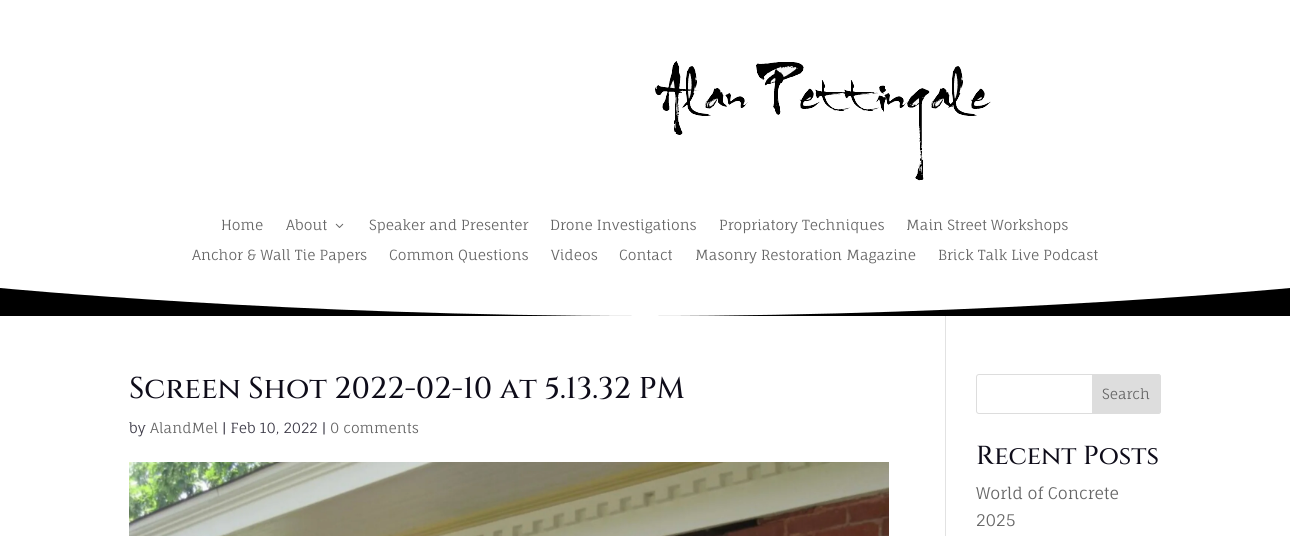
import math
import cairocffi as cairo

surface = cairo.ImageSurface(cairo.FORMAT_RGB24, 1290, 536)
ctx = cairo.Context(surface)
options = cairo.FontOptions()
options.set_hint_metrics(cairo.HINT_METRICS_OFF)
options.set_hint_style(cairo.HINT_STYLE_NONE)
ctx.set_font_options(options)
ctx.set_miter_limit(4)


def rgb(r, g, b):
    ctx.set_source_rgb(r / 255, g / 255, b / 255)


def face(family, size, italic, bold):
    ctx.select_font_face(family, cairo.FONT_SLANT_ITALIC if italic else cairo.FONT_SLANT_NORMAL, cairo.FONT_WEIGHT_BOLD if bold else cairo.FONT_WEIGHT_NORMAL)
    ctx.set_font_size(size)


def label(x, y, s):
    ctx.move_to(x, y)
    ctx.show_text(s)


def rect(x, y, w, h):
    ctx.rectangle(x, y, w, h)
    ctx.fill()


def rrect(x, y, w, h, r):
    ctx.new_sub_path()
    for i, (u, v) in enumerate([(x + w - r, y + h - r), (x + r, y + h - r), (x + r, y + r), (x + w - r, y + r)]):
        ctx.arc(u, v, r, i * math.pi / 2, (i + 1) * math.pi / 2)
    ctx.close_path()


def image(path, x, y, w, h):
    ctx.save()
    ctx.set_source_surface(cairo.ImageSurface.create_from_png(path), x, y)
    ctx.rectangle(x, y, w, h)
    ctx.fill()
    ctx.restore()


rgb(255, 255, 255)
ctx.paint()
image('image0.png', 655, 61, 336, 120)
face('Fauna One', 14, 0, 0)
rgb(102, 102, 102)
label(221, 230, 'Home')
label(286, 230, 'About')
image('image1.png', 335, 223, 9, 5)
label(369, 230, 'Speaker and Presenter')
label(550, 230, 'Drone Investigations')
label(719, 230, 'Propriatory Techniques')
label(906, 230, 'Main Street Workshops')
label(192, 260, 'Anchor & Wall Tie Papers')
label(389, 260, 'Common Questions')
label(551, 260, 'Videos')
label(619, 260, 'Contact')
label(695, 260, 'Masonry Restoration Magazine')
label(938, 260, 'Brick Talk Live Podcast')
rgb(0, 0, 0)
ctx.new_path()
ctx.move_to(1290, 316)
ctx.line_to(1290, 288)
ctx.curve_to(1290, 288, 1001, 316, 645, 316)
ctx.curve_to(289, 316, 0, 288, 0, 288)
ctx.line_to(0, 316)
ctx.close_path()
ctx.fill()
rgb(226, 226, 226)
rect(945, 316, 1, 220)
face('Cinzel Medium', 30, 0, 0)
rgb(14, 12, 25)
label(129, 398, 'Screen Shot 2022-02-10 at 5.13.32 PM')
face('Fauna One', 14, 0, 0)
rgb(60, 58, 71)
label(129, 433, 'by')
rgb(102, 102, 102)
label(150, 433, 'AlandMel')
rgb(60, 58, 71)
label(222, 433, '| Feb 10, 2022 |')
rgb(102, 102, 102)
label(330, 433, '0 comments')
image('image2.png', 129, 462, 760, 74)
rrect(976.5, 374.5, 184, 39, 2.5)
rgb(221, 221, 221)
ctx.set_line_width(1)
ctx.stroke()
ctx.new_path()
ctx.move_to(1092.5, 374.5)
ctx.line_to(1158, 374.5)
ctx.curve_to(1159.5, 374.5, 1160.5, 375.5, 1160.5, 377)
ctx.line_to(1160.5, 411)
ctx.curve_to(1160.5, 412.5, 1159.5, 413.5, 1158, 413.5)
ctx.line_to(1092.5, 413.5)
ctx.close_path()
ctx.fill_preserve()
ctx.stroke()
rgb(102, 102, 102)
label(1102, 399, 'Search')
face('Cinzel Medium', 26, 0, 0)
rgb(14, 12, 25)
label(976, 464, 'Recent Posts')
face('Fauna One', 16, 0, 0)
rgb(102, 102, 102)
label(976, 499, 'World of Concrete')
label(976, 526, '2025')
surface.write_to_png('render.png')
